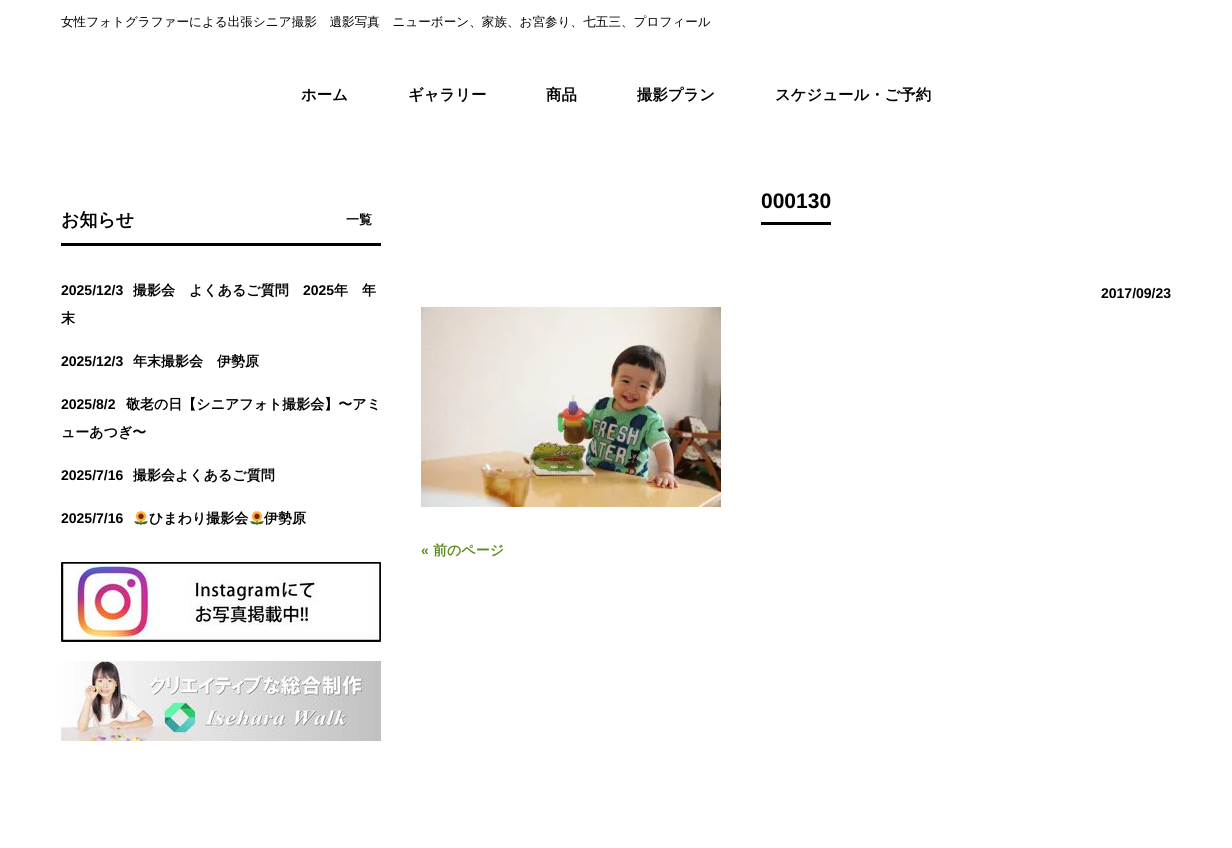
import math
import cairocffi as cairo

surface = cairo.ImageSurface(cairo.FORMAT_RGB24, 1232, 848)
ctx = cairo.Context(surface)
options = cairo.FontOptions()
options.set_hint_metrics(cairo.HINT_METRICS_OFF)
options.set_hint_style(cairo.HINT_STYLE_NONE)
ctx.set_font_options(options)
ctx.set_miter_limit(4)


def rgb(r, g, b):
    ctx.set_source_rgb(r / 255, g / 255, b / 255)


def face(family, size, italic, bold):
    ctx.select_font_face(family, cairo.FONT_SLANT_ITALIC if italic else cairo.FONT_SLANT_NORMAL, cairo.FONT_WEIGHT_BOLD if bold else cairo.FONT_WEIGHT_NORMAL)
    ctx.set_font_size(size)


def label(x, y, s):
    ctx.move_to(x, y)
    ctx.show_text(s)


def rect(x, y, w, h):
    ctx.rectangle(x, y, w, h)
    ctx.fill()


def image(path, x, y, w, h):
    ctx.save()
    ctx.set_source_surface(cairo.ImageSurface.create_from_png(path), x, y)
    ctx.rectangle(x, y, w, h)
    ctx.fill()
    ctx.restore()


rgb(255, 255, 255)
ctx.paint()
face('WenQuanYi Zen Hei Medium', 12.6, 0, 0)
rgb(0, 0, 0)
label(61, 26, '女性フォトグラファーによる出張シニア撮影　遺影写真　ニューボーン、家族、お宮参り、七五三、プロフィール')
face('WenQuanYi Zen Hei', 15.4, 0, 1)
label(301, 100, 'ホーム')
label(408, 100, 'ギャラリー')
label(546, 100, '商品')
label(637, 100, '撮影プラン')
label(775, 100, 'スケジュール・ご予約')
rect(61, 243, 320, 3)
face('WenQuanYi Zen Hei', 18, 0, 1)
label(61, 226, 'お知らせ')
face('WenQuanYi Zen Hei', 13, 0, 1)
label(346, 224, '一覧')
face('Liberation Sans', 14, 0, 1)
label(61, 295, '2025/12/3')
face('WenQuanYi Zen Hei', 14, 0, 1)
label(133, 295, '撮影会　よくあるご質問')
face('Liberation Sans', 14, 0, 1)
label(303, 295, '2025')
face('WenQuanYi Zen Hei', 14, 0, 1)
label(334, 295, '年　年')
label(61, 323, '末')
face('Liberation Sans', 14, 0, 1)
label(61, 366, '2025/12/3')
face('WenQuanYi Zen Hei', 14, 0, 1)
label(133, 366, '年末撮影会　伊勢原')
face('Liberation Sans', 14, 0, 1)
label(61, 409, '2025/8/2')
face('WenQuanYi Zen Hei', 14, 0, 1)
label(126, 409, '敬老の日【シニアフォト撮影会】〜アミ')
label(61, 437, 'ューあつぎ〜')
face('Liberation Sans', 14, 0, 1)
label(61, 480, '2025/7/16')
face('WenQuanYi Zen Hei', 14, 0, 1)
label(133, 480, '撮影会よくあるご質問')
face('Liberation Sans', 14, 0, 1)
label(61, 523, '2025/7/16')
image('image0.png', 134, 511, 14, 14)
face('WenQuanYi Zen Hei', 14, 0, 1)
label(149, 523, 'ひまわり撮影会')
image('image0.png', 250, 511, 14, 14)
label(264, 523, '伊勢原')
image('image1.png', 61, 562, 320, 80)
image('image2.png', 61, 661, 320, 80)
face('Liberation Sans', 21, 0, 1)
label(761, 208, '000130')
rect(761, 222, 70, 3)
face('Liberation Sans', 14, 0, 1)
label(1101, 298, '2017/09/23')
image('image3.png', 421, 307, 300, 200)
rgb(91, 138, 29)
label(421, 555, '«')
face('WenQuanYi Zen Hei', 14, 0, 1)
label(433, 555, '前のページ')
surface.write_to_png('render.png')
